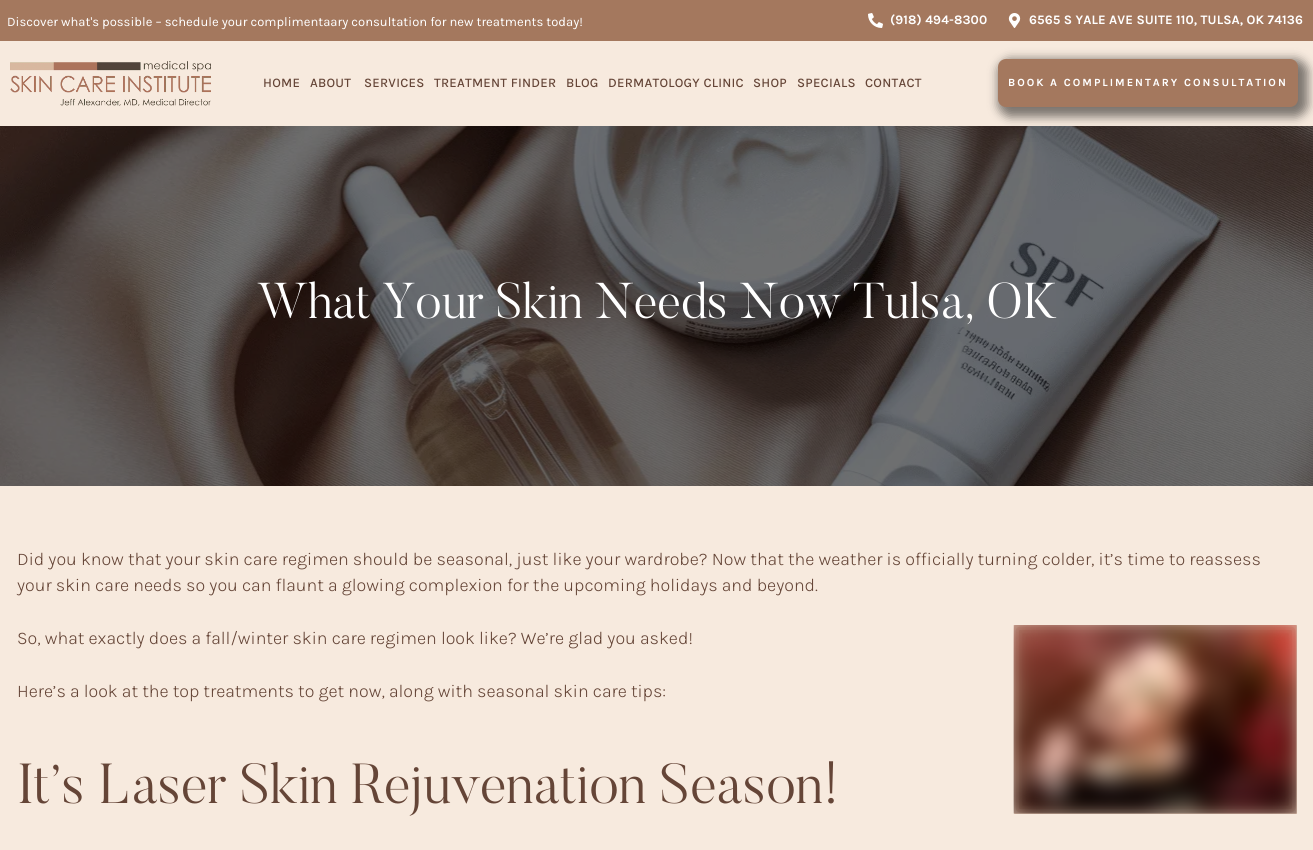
import math
import cairocffi as cairo

surface = cairo.ImageSurface(cairo.FORMAT_RGB24, 1313, 850)
ctx = cairo.Context(surface)
options = cairo.FontOptions()
options.set_hint_metrics(cairo.HINT_METRICS_OFF)
options.set_hint_style(cairo.HINT_STYLE_NONE)
ctx.set_font_options(options)
ctx.set_miter_limit(4)


def rgb(r, g, b):
    ctx.set_source_rgb(r / 255, g / 255, b / 255)


def face(family, size, italic, bold):
    ctx.select_font_face(family, cairo.FONT_SLANT_ITALIC if italic else cairo.FONT_SLANT_NORMAL, cairo.FONT_WEIGHT_BOLD if bold else cairo.FONT_WEIGHT_NORMAL)
    ctx.set_font_size(size)


def label(x, y, s):
    ctx.move_to(x, y)
    ctx.show_text(s)


def tracked(x, y, s, letter, word):
    ctx.move_to(x, y)
    for ch in s:
        ctx.show_text(ch)
        ctx.rel_move_to(letter + word * (ch == ' '), 0)


def rect(x, y, w, h):
    ctx.rectangle(x, y, w, h)
    ctx.fill()


def rrect(x, y, w, h, r):
    ctx.new_sub_path()
    for i, (u, v) in enumerate([(x + w - r, y + h - r), (x + r, y + h - r), (x + r, y + r), (x + w - r, y + r)]):
        ctx.arc(u, v, r, i * math.pi / 2, (i + 1) * math.pi / 2)
    ctx.close_path()


def soft_shadow(x, y, w, h, r, blur, alpha):
    ctx.push_group_with_content(cairo.CONTENT_ALPHA)
    ctx.set_operator(cairo.OPERATOR_SOURCE)
    for i in range(15, -16, -2):
        e = blur * i / 6
        if min(w, h) + 2 * e > 0:
            ctx.set_source_rgba(0, 0, 0, alpha * math.erfc((i - 1) / 8.5) / 2)
            rrect(x - e, y - e, w + 2 * e, h + 2 * e, max(0, min(r + e + blur * .6, min(w, h) / 2 + e)))
            ctx.fill()
    ctx.mask(ctx.pop_group())


def image(path, x, y, w, h):
    ctx.save()
    ctx.set_source_surface(cairo.ImageSurface.create_from_png(path), x, y)
    ctx.rectangle(x, y, w, h)
    ctx.fill()
    ctx.restore()


rgb(247, 234, 222)
ctx.paint()
rgb(164, 120, 94)
rect(0, 0, 1313, 41)
face('Karla', 13, 0, 0)
rgb(255, 255, 255)
label(7, 26, 'Discover what\'s possible – schedule your complimentaary consultation for new treatments today!')
image('image0.png', 868, 13, 15, 15)
face('Karla', 13, 0, 1)
tracked(890, 24, '(918) 494-8300', 0.1, 0)
image('image1.png', 1008, 13, 13, 15)
tracked(1029, 24, '6565 S YALE AVE SUITE 110, TULSA, OK 74136', 0.1, 0)
image('image2.png', 10, 61, 201, 45)
face('Karla Medium', 13, 0, 0)
rgb(101, 69, 55)
tracked(263, 87, 'HOME', 0.25, 0)
tracked(310, 87, 'ABOUT', 0.25, 0)
tracked(364, 87, 'SERVICES', 0.25, 0)
tracked(434, 87, 'TREATMENT FINDER', 0.25, 0)
tracked(566, 87, 'BLOG', 0.25, 0)
tracked(608, 87, 'DERMATOLOGY CLINIC', 0.25, 0)
tracked(753, 87, 'SHOP', 0.25, 0)
tracked(797, 87, 'SPECIALS', 0.25, 0)
tracked(865, 87, 'CONTACT', 0.25, 0)
rgb(0, 0, 0)
soft_shadow(998, 59, 310, 58, 13, 5, 0.5)
rgb(164, 120, 94)
rrect(998, 59, 300, 48, 8)
ctx.fill()
face('Karla', 11, 0, 1)
rgb(255, 255, 255)
tracked(1008, 86, 'BOOK A COMPLIMENTARY CONSULTATION', 2, 0)
image('image3.png', 0, 126, 1313, 360)
face('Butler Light', 50, 0, 0)
label(257, 318, 'What Your Skin Needs Now Tulsa, OK')
face('Karla Light', 18, 0, 0)
rgb(101, 69, 55)
label(17, 565, 'Did you know that your skin care regimen should be seasonal, just like your wardrobe? Now that the weather is officially turning colder, it’s time to reassess')
label(17, 591, 'your skin care needs so you can flaunt a glowing complexion for the upcoming holidays and beyond.')
label(17, 644, 'So, what exactly does a fall/winter skin care regimen look like? We’re glad you asked!')
ctx.save()
ctx.rectangle(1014, 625, 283, 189)
ctx.clip()
rgb(164, 120, 94)
soft_shadow(1014, 625, 283, 189, 0, 10, 1)
ctx.restore()
image('image4.png', 1013, 625, 284, 189)
label(17, 697, 'Here’s a look at the top treatments to get now, along with seasonal skin care tips:')
face('Butler Light', 56, 0, 0)
label(17, 803, 'It’s Laser Skin Rejuvenation Season!')
surface.write_to_png('render.png')
